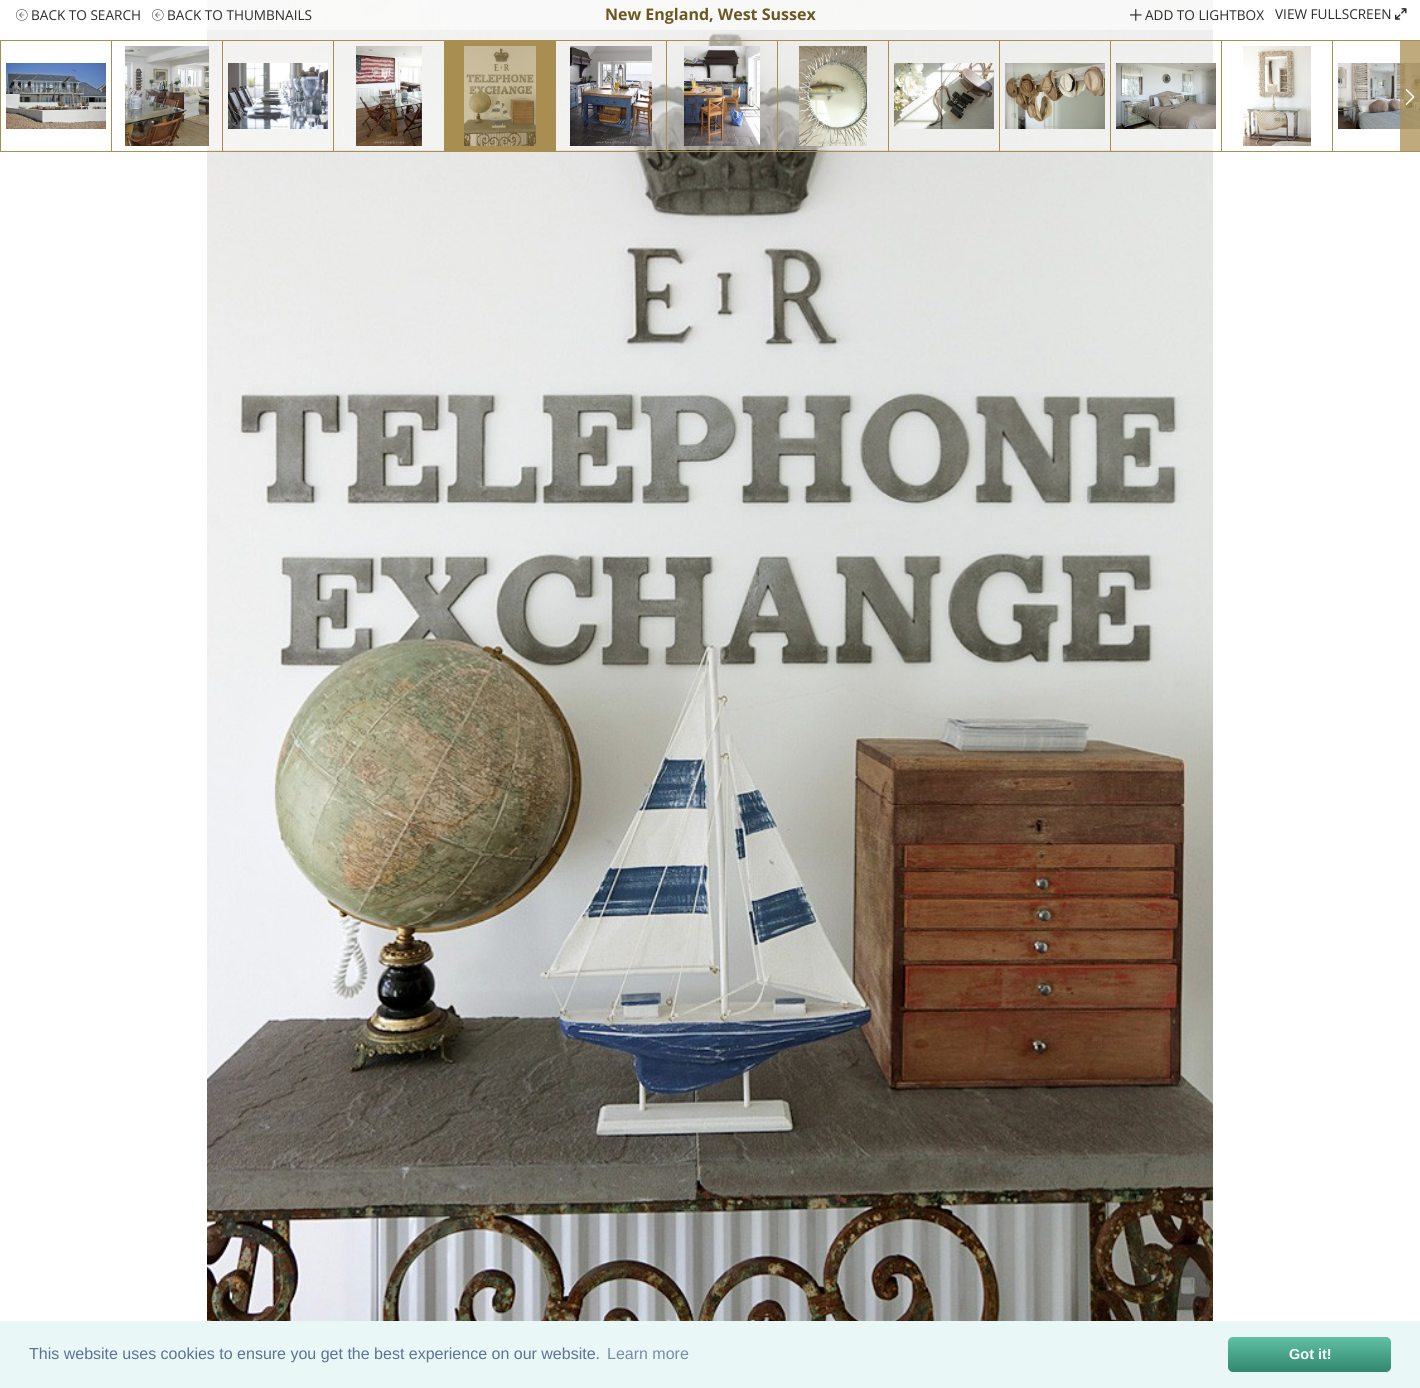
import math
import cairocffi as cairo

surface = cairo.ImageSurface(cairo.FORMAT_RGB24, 1420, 1388)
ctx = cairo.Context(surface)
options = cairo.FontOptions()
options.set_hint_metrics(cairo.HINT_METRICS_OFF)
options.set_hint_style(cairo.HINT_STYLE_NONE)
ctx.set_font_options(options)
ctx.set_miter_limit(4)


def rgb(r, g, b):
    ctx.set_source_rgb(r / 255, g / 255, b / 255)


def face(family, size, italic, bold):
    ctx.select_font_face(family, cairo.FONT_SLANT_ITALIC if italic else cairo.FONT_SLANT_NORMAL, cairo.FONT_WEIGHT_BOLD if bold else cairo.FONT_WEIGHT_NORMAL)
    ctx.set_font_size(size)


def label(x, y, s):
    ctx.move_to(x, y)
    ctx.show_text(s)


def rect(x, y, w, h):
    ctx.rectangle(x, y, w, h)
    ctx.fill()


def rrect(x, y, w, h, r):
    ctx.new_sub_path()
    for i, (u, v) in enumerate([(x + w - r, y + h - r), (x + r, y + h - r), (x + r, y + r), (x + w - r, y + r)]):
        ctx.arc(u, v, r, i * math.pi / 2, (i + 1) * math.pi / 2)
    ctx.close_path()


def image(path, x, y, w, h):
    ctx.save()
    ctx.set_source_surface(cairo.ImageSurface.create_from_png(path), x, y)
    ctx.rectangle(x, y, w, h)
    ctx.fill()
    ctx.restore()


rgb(255, 255, 255)
ctx.paint()
image('image0.png', 207, 0, 1006, 1321)
ctx.set_source_rgba(1, 1, 1, 0.5)
rect(207, 30, 1006, 120)
ctx.rectangle(0.5, 40.5, 111, 111)
rgb(168, 142, 81)
ctx.set_line_width(1)
ctx.stroke()
image('image1.png', 6, 63, 100, 66)
ctx.rectangle(111.5, 40.5, 111, 111)
ctx.stroke()
image('image2.png', 125, 46, 84, 100)
ctx.rectangle(222.5, 40.5, 111, 111)
ctx.stroke()
image('image3.png', 228, 63, 100, 66)
ctx.rectangle(333.5, 40.5, 111, 111)
ctx.stroke()
image('image4.png', 356, 46, 66, 100)
rect(445, 40, 110, 112)
image('image5.png', 464, 46, 72, 100)
ctx.rectangle(555.5, 40.5, 111, 111)
ctx.stroke()
image('image6.png', 570, 46, 82, 100)
ctx.rectangle(666.5, 40.5, 111, 111)
ctx.stroke()
image('image7.png', 684, 46, 76, 100)
ctx.rectangle(777.5, 40.5, 111, 111)
ctx.stroke()
image('image8.png', 799, 46, 68, 100)
ctx.rectangle(888.5, 40.5, 111, 111)
ctx.stroke()
image('image9.png', 894, 63, 100, 66)
ctx.rectangle(999.5, 40.5, 111, 111)
ctx.stroke()
image('image10.png', 1005, 63, 100, 66)
ctx.rectangle(1110.5, 40.5, 111, 111)
ctx.stroke()
image('image11.png', 1116, 63, 100, 66)
ctx.rectangle(1221.5, 40.5, 111, 111)
ctx.stroke()
image('image12.png', 1243, 46, 68, 100)
ctx.rectangle(1332.5, 40.5, 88, 111)
ctx.stroke()
image('image13.png', 1338, 63, 82, 66)
ctx.set_source_rgba(0.659, 0.557, 0.318, 0.75)
rect(1400, 41, 20, 110)
image('image14.png', 1405, 89, 10, 16)
ctx.set_source_rgba(1, 1, 1, 0.8)
rect(207, 0, 1006, 30)
image('image15.png', 16, 9, 12, 12)
face('Open Sans', 13.6, 0, 0)
rgb(44, 43, 43)
label(31, 20, 'BACK TO SEARCH')
image('image15.png', 152, 9, 12, 12)
label(167, 20, 'BACK TO THUMBNAILS')
face('Open Sans', 16, 0, 1)
rgb(108, 87, 34)
label(605, 20, 'New England, West Sussex')
image('image16.png', 1130, 9, 12, 12)
face('Open Sans', 13.6, 0, 0)
rgb(44, 43, 43)
label(1145, 20, 'ADD TO LIGHTBOX')
label(1275, 19, 'VIEW FULLSCREEN')
image('image17.png', 1395, 8, 12, 12)
rgb(234, 247, 247)
rect(0, 1321, 1420, 67)
face('Liberation Sans', 16, 0, 0)
rgb(92, 114, 145)
label(29, 1359, 'This website uses cookies to ensure you get the best experience on our website.')
rgb(120, 141, 165)
label(607, 1359, 'Learn more')
gradient = cairo.LinearGradient(1310, 1372, 1310, 1337)
gradient.add_color_stop_rgba(0, 0.192, 0.529, 0.431, 1)
gradient.add_color_stop_rgba(1, 0.376, 0.757, 0.643, 1)
ctx.set_source(gradient)
rrect(1228, 1337, 163, 35, 5)
ctx.fill()
face('Liberation Sans', 14.5, 0, 1)
rgb(255, 255, 255)
label(1289, 1359, 'Got it!')
surface.write_to_png('render.png')
